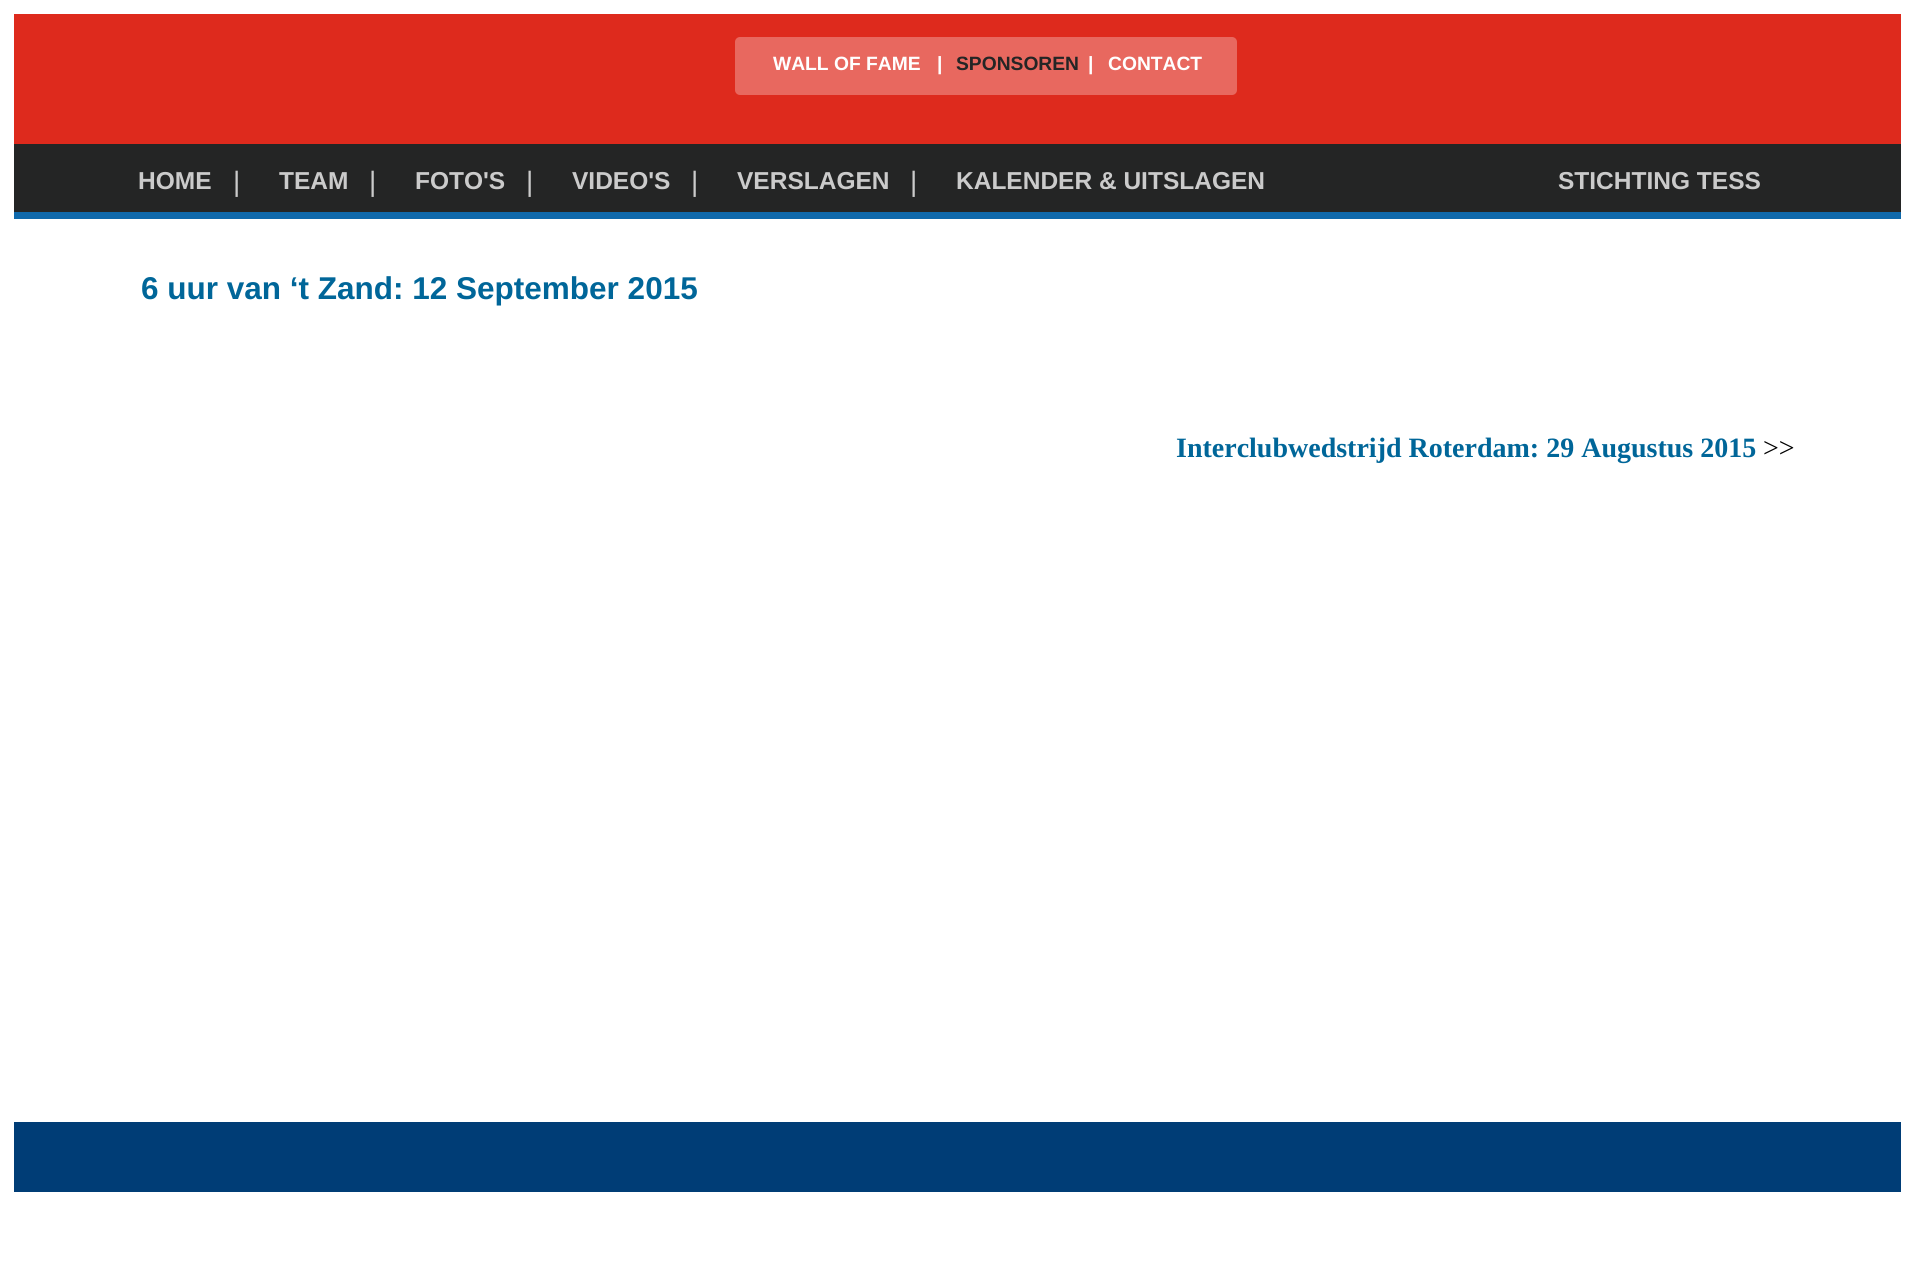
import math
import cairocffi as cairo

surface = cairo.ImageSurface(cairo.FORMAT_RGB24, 1913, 1272)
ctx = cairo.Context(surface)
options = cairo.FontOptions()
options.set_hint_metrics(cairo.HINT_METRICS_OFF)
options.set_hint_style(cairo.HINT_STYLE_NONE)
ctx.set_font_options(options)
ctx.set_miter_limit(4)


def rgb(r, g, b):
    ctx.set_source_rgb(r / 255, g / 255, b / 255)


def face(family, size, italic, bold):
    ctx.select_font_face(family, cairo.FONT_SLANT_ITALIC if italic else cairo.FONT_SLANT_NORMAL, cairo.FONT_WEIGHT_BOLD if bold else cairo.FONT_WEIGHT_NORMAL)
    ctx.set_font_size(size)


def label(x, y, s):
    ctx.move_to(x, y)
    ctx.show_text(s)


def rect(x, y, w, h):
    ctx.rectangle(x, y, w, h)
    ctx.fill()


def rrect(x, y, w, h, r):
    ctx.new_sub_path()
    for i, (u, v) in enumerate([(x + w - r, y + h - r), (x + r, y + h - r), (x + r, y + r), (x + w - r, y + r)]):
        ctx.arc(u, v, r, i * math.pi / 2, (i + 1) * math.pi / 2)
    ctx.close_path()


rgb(255, 255, 255)
ctx.paint()
rgb(222, 42, 29)
rect(14, 14, 1887, 130)
rgb(15, 105, 171)
rect(14, 212, 1887, 7)
rgb(232, 104, 95)
rrect(735, 37, 502, 58, 5)
ctx.fill()
face('Liberation Sans', 19.25, 0, 1)
rgb(255, 255, 255)
label(773, 70, 'WALL OF FAME')
label(937, 70, '|')
rgb(36, 37, 37)
label(956, 70, 'SPONSOREN')
rgb(255, 255, 255)
label(1088, 70, '|')
label(1108, 70, 'CONTACT')
rgb(36, 37, 37)
rect(14, 144, 1887, 68)
face('Liberation Sans', 24.5, 0, 1)
rgb(203, 203, 203)
label(138, 189, 'HOME')
face('Liberation Sans', 28, 0, 0)
label(233, 191, '|')
face('Liberation Sans', 24.5, 0, 1)
label(279, 189, 'TEAM')
face('Liberation Sans', 28, 0, 0)
label(369, 191, '|')
face('Liberation Sans', 24.5, 0, 1)
label(415, 189, 'FOTO\'S')
face('Liberation Sans', 28, 0, 0)
label(526, 191, '|')
face('Liberation Sans', 24.5, 0, 1)
label(572, 189, 'VIDEO\'S')
face('Liberation Sans', 28, 0, 0)
label(691, 191, '|')
face('Liberation Sans', 24.5, 0, 1)
label(737, 189, 'VERSLAGEN')
face('Liberation Sans', 28, 0, 0)
label(910, 191, '|')
face('Liberation Sans', 24.5, 0, 1)
label(956, 189, 'KALENDER & UITSLAGEN')
label(1558, 189, 'STICHTING TESS')
face('Liberation Sans', 31.5, 0, 1)
rgb(0, 102, 153)
label(141, 299, '6 uur van ‘t Zand: 12 September 2015')
face('Liberation Serif', 28, 0, 1)
label(1176, 457, 'Interclubwedstrijd Roterdam: 29 Augustus 2015')
face('Liberation Serif', 28, 0, 0)
rgb(0, 0, 0)
label(1763, 457, '>>')
rgb(0, 61, 118)
rect(14, 1122, 1887, 70)
surface.write_to_png('render.png')
